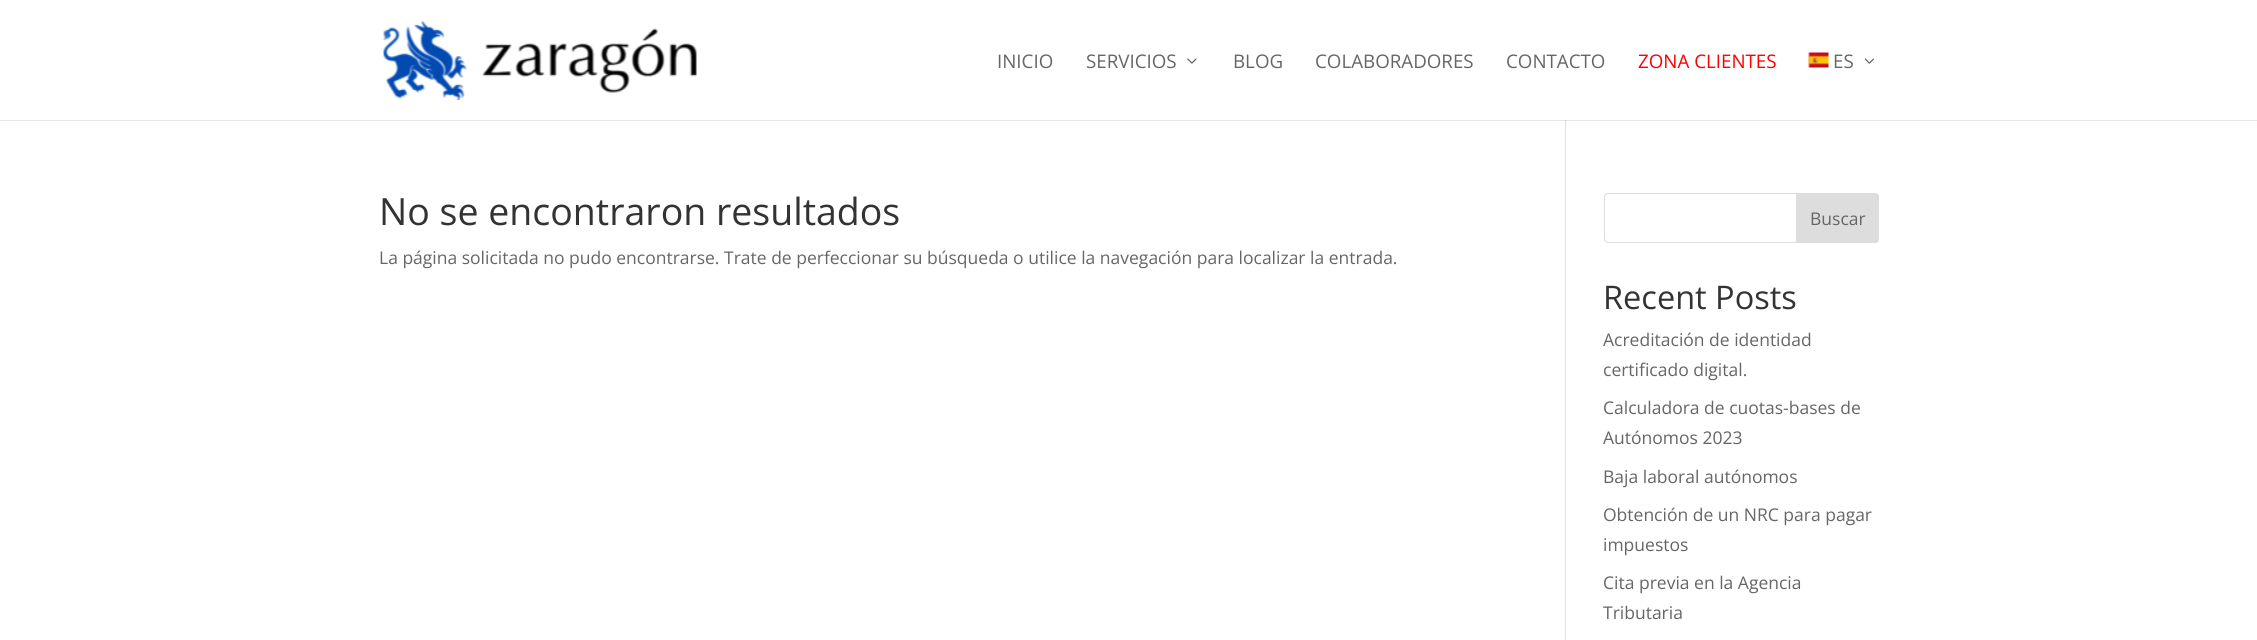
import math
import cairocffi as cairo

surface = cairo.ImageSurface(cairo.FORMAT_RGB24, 2257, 640)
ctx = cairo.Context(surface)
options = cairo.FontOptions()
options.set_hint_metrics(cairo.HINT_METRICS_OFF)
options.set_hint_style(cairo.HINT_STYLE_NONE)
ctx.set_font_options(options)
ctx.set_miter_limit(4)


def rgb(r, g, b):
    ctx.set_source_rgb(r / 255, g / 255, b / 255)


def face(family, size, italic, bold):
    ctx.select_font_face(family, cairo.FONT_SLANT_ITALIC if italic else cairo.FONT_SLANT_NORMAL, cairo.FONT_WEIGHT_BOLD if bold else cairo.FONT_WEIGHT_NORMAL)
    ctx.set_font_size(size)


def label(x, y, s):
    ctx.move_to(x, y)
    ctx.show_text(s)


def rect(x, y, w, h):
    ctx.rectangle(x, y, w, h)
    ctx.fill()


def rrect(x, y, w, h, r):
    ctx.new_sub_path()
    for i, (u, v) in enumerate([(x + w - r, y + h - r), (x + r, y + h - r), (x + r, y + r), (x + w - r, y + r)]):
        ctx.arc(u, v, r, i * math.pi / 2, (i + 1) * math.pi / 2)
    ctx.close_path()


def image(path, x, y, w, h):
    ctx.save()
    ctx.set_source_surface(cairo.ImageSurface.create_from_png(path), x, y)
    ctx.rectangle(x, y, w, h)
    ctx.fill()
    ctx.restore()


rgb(255, 255, 255)
ctx.paint()
rgb(226, 226, 226)
rect(1565, 120, 1, 520)
ctx.set_source_rgba(0, 0, 0, 0.1)
ctx.new_path()
ctx.move_to(0, 120)
ctx.line_to(0, 121)
ctx.line_to(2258, 121)
ctx.line_to(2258, 1)
ctx.line_to(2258, 120)
ctx.close_path()
ctx.fill()
image('image0.png', 383, 21, 314, 79)
face('Open Sans', 18.75, 0, 0)
rgb(102, 102, 102)
label(997, 68, 'INICIO')
label(1086, 68, 'SERVICIOS')
image('image1.png', 1187, 58, 10, 6)
label(1233, 68, 'BLOG')
label(1315, 68, 'COLABORADORES')
label(1506, 68, 'CONTACTO')
rgb(255, 0, 0)
label(1638, 68, 'ZONA CLIENTES')
image('image2.png', 1808, 52, 21, 16)
rgb(102, 102, 102)
label(1833, 68, 'ES')
image('image3.png', 1864, 58, 10, 6)
face('Open Sans', 37.5, 0, 0)
rgb(51, 51, 51)
label(379, 225, 'No se encontraron resultados')
face('Open Sans', 17.5, 0, 0)
rgb(102, 102, 102)
label(379, 264, 'La página solicitada no pudo encontrarse. Trate de perfeccionar su búsqueda o utilice la navegación para localizar la entrada.')
rrect(1604.5, 193.5, 274, 49, 3.5)
rgb(221, 221, 221)
ctx.set_line_width(1)
ctx.stroke()
ctx.new_path()
ctx.move_to(1796.5, 193.5)
ctx.line_to(1875, 193.5)
ctx.curve_to(1877, 193.5, 1878.5, 195, 1878.5, 197)
ctx.line_to(1878.5, 239)
ctx.curve_to(1878.5, 241, 1877, 242.5, 1875, 242.5)
ctx.line_to(1796.5, 242.5)
ctx.close_path()
ctx.fill_preserve()
ctx.stroke()
rgb(102, 102, 102)
label(1810, 225, 'Buscar')
face('Open Sans', 32.5, 0, 0)
rgb(51, 51, 51)
label(1603, 309, 'Recent Posts')
face('Open Sans', 17.5, 0, 0)
rgb(102, 102, 102)
label(1603, 346, 'Acreditación de identidad')
label(1603, 376, 'certificado digital.')
label(1603, 414, 'Calculadora de cuotas-bases de')
label(1603, 444, 'Autónomos 2023')
label(1603, 483, 'Baja laboral autónomos')
label(1603, 521, 'Obtención de un NRC para pagar')
label(1603, 551, 'impuestos')
label(1603, 589, 'Cita previa en la Agencia')
label(1603, 619, 'Tributaria')
surface.write_to_png('render.png')
